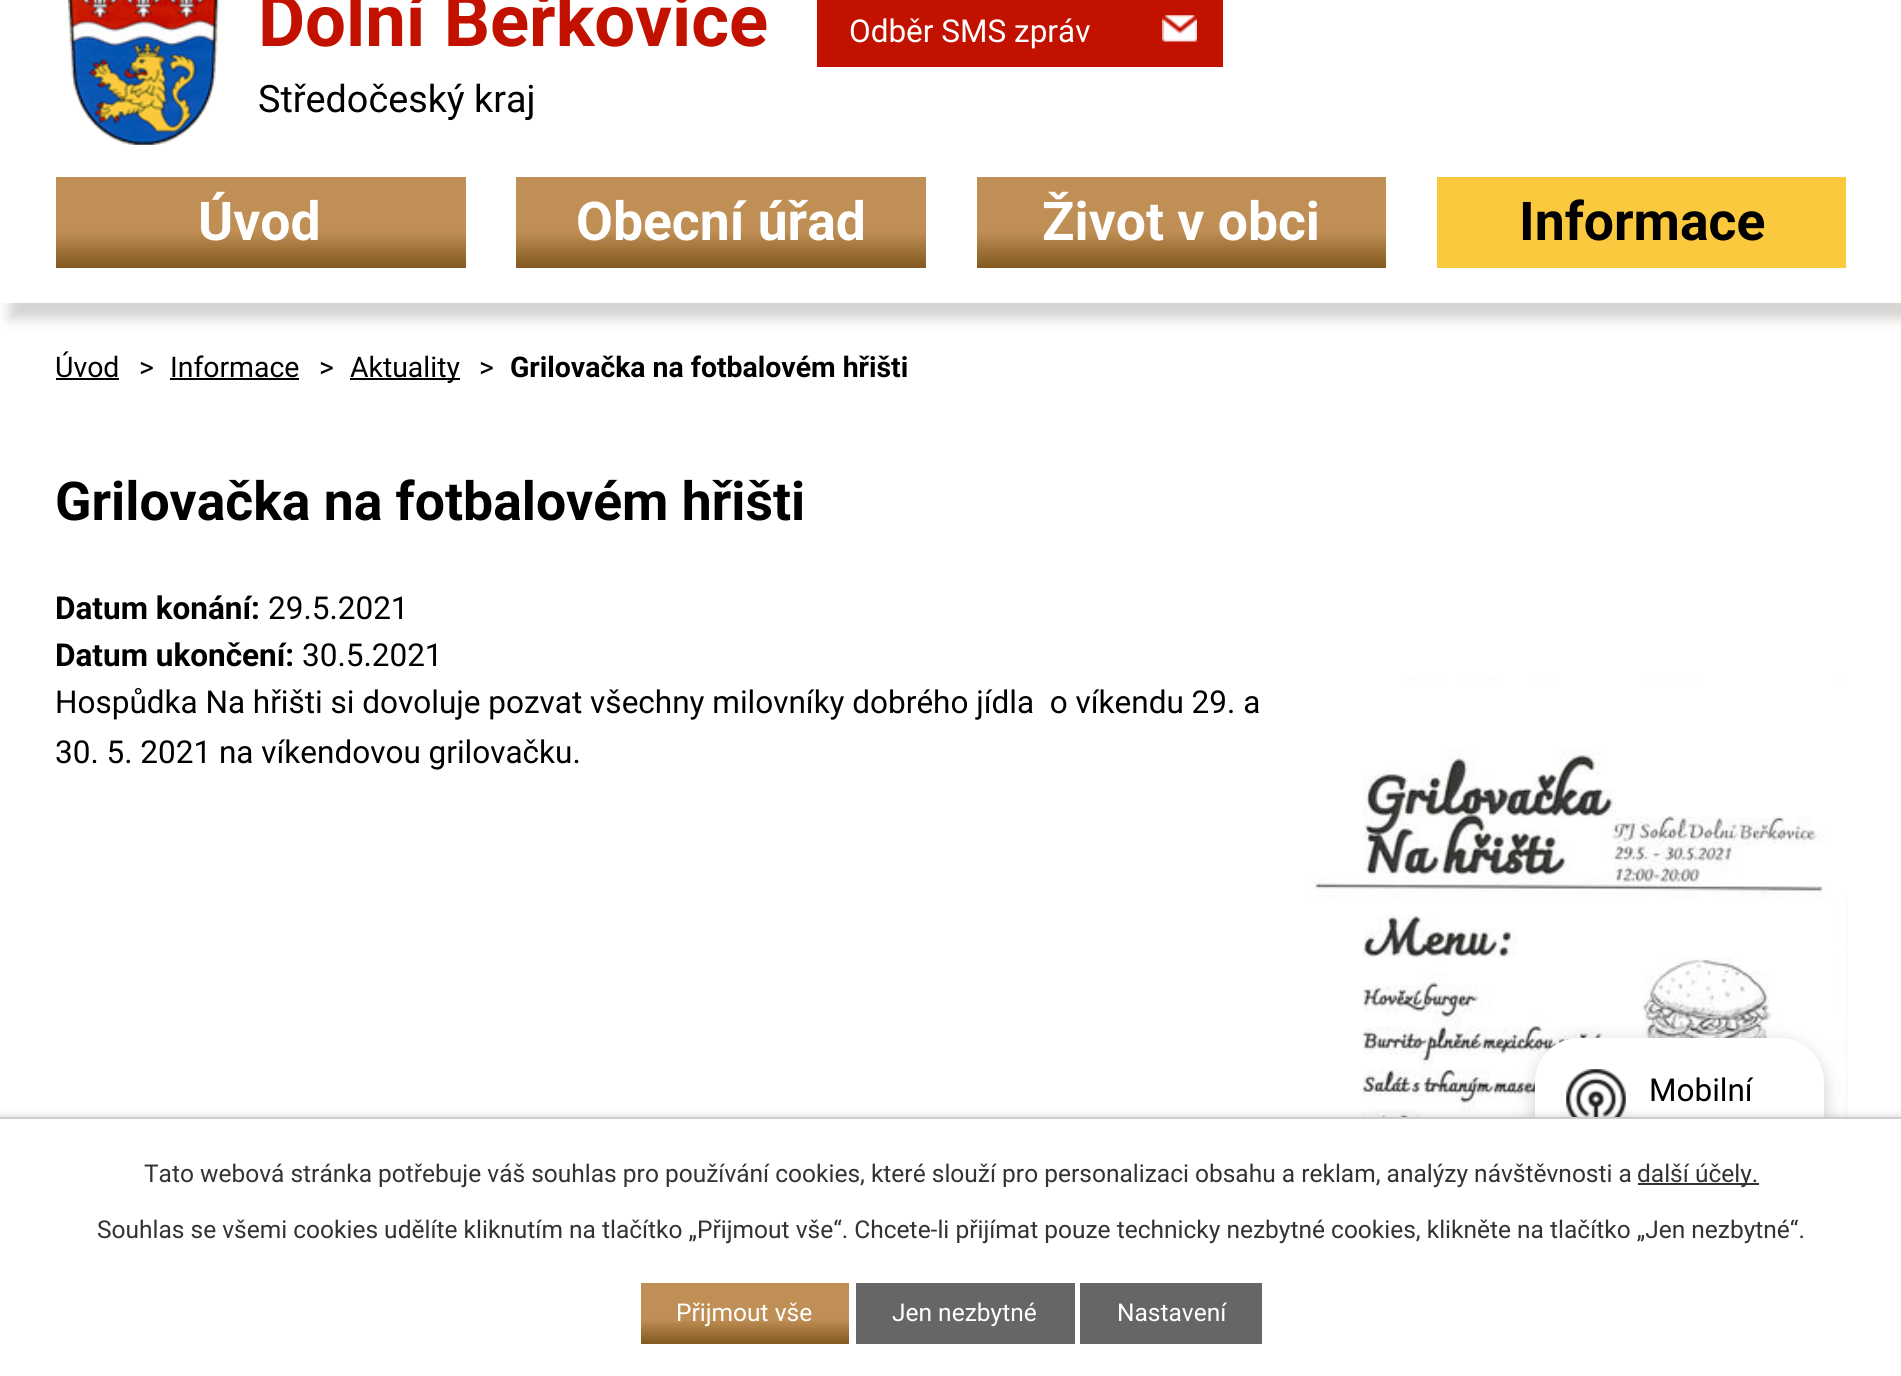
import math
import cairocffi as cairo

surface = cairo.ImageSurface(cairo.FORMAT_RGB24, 1901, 1376)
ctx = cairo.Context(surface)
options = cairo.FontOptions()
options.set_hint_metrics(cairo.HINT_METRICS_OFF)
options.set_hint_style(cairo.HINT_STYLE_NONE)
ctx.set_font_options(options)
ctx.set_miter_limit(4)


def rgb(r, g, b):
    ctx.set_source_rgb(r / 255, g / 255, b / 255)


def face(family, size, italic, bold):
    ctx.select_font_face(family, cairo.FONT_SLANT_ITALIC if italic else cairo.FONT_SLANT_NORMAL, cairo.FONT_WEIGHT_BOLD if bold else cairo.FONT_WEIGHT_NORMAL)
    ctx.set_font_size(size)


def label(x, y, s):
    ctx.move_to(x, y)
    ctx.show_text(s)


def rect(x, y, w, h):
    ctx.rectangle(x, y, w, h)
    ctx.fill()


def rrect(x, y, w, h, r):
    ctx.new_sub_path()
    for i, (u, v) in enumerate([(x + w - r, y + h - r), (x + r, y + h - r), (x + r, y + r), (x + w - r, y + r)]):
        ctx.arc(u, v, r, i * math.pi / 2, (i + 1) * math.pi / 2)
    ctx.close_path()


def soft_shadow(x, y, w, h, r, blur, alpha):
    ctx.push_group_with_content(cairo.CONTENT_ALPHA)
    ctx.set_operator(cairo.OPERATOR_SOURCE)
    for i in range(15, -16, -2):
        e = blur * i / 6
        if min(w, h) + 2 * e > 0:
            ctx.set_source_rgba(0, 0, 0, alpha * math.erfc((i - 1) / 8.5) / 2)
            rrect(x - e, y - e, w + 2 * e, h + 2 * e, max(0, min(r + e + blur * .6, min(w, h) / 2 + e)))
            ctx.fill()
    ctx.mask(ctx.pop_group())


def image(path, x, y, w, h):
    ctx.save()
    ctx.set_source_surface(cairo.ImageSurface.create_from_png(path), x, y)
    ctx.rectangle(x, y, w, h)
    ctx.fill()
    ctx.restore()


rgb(255, 255, 255)
ctx.paint()
ctx.save()
ctx.set_fill_rule(cairo.FILL_RULE_EVEN_ODD)
ctx.new_path()
ctx.move_to(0, 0)
ctx.line_to(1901, 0)
ctx.line_to(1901, 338)
ctx.line_to(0, 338)
ctx.close_path()
ctx.move_to(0, -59)
ctx.line_to(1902, -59)
ctx.line_to(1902, 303)
ctx.line_to(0, 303)
ctx.close_path()
ctx.clip()
rgb(47, 40, 30)
soft_shadow(9, -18, 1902, 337, 0, 6, 0.2)
ctx.restore()
ctx.set_source_rgba(1, 1, 1, 0.8)
rect(5, 302, 1896, 1)
image('image0.png', 68, 0, 151, 145)
face('Roboto', 72.5, 0, 1)
rgb(195, 17, 0)
label(258, 46, 'Dolní Beřkovice')
face('Roboto', 37.75, 0, 0)
rgb(0, 0, 0)
label(258, 112, 'Středočeský kraj')
rgb(195, 17, 0)
rect(817, 0, 406, 67)
image('image1.png', 1162, 15, 35, 27)
face('Roboto', 31.5, 0, 0)
rgb(255, 255, 255)
label(849, 42, 'Odběr SMS zpráv')
gradient = cairo.LinearGradient(261, 177, 261, 268)
gradient.add_color_stop_rgba(0.59, 0.753, 0.561, 0.333, 1)
gradient.add_color_stop_rgba(1, 0.51, 0.349, 0.125, 1)
ctx.set_source(gradient)
rect(56, 177, 410, 91)
face('Roboto', 53.5, 0, 1)
rgb(255, 255, 255)
label(198, 240, 'Úvod')
gradient = cairo.LinearGradient(721, 177, 721, 268)
gradient.add_color_stop_rgba(0.59, 0.753, 0.561, 0.333, 1)
gradient.add_color_stop_rgba(1, 0.51, 0.349, 0.125, 1)
ctx.set_source(gradient)
rect(516, 177, 410, 91)
rgb(255, 255, 255)
label(576, 240, 'Obecní úřad')
gradient = cairo.LinearGradient(1181, 177, 1181, 268)
gradient.add_color_stop_rgba(0.59, 0.753, 0.561, 0.333, 1)
gradient.add_color_stop_rgba(1, 0.51, 0.349, 0.125, 1)
ctx.set_source(gradient)
rect(977, 177, 409, 91)
rgb(255, 255, 255)
label(1042, 240, 'Život v obci')
rgb(251, 201, 61)
rect(1437, 177, 409, 91)
rgb(0, 0, 0)
label(1519, 240, 'Informace')
face('Roboto', 28.4, 0, 0)
label(55, 377, 'Úvod')
rect(56, 378, 63, 2)
label(139, 377, '>')
label(170, 377, 'Informace')
rect(170, 378, 129, 2)
label(319, 377, '>')
rect(350, 378, 110, 2)
label(350, 377, 'Aktuality')
label(479, 377, '>')
face('Roboto', 28.4, 0, 1)
label(510, 377, 'Grilovačka na fotbalovém hřišti')
face('Roboto', 53.5, 0, 1)
label(55, 520, 'Grilovačka na fotbalovém hřišti')
face('Roboto', 31.5, 0, 1)
label(55, 619, 'Datum konání:')
face('Roboto', 31.5, 0, 0)
label(268, 619, '29.5.2021')
face('Roboto', 31.5, 0, 1)
label(55, 666, 'Datum ukončení:')
face('Roboto', 31.5, 0, 0)
label(302, 666, '30.5.2021')
label(55, 713, 'Hospůdka Na hřišti si dovoluje pozvat všechny milovníky dobrého jídla  o víkendu 29. a')
image('image2.png', 1310, 677, 538, 440)
label(55, 763, '30. 5. 2021 na víkendovou grilovačku.')
rgb(0, 0, 0)
soft_shadow(1535, 1043, 289, 261, 44, 9, 0.2)
rgb(255, 255, 255)
rrect(1535, 1038, 289, 261, 44)
ctx.fill()
image('image3.png', 1566, 1069, 60, 48)
rgb(0, 0, 0)
label(1649, 1101, 'Mobilní')
rgb(0, 0, 0)
soft_shadow(0, 1117, 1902, 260, 0, 4.5, 0.2)
rgb(255, 255, 255)
rect(0, 1119, 1901, 257)
rgb(204, 204, 204)
rect(0, 1117, 1901, 2)
face('Roboto', 24.5, 0, 0)
rgb(51, 51, 51)
label(144, 1182, 'Tato webová stránka potřebuje váš souhlas pro používání cookies, které slouží pro personalizaci obsahu a reklam, analýzy návštěvnosti a')
rect(1638, 1183, 121, 2)
label(1637, 1182, 'další účely.')
label(97, 1238, 'Souhlas se všemi cookies udělíte kliknutím na tlačítko „Přijmout vše“. Chcete-li přijímat pouze technicky nezbytné cookies, klikněte na tlačítko „Jen nezbytné“.')
gradient = cairo.LinearGradient(745, 1283, 745, 1344)
gradient.add_color_stop_rgba(0.59, 0.753, 0.561, 0.333, 1)
gradient.add_color_stop_rgba(1, 0.51, 0.349, 0.125, 1)
ctx.set_source(gradient)
rect(641, 1283, 208, 61)
rgb(255, 255, 255)
label(676, 1321, 'Přijmout vše')
rgb(102, 102, 102)
rect(856, 1283, 219, 61)
rgb(255, 255, 255)
label(892, 1321, 'Jen nezbytné')
rgb(102, 102, 102)
rect(1080, 1283, 182, 61)
rgb(255, 255, 255)
label(1117, 1321, 'Nastavení')
surface.write_to_png('render.png')
